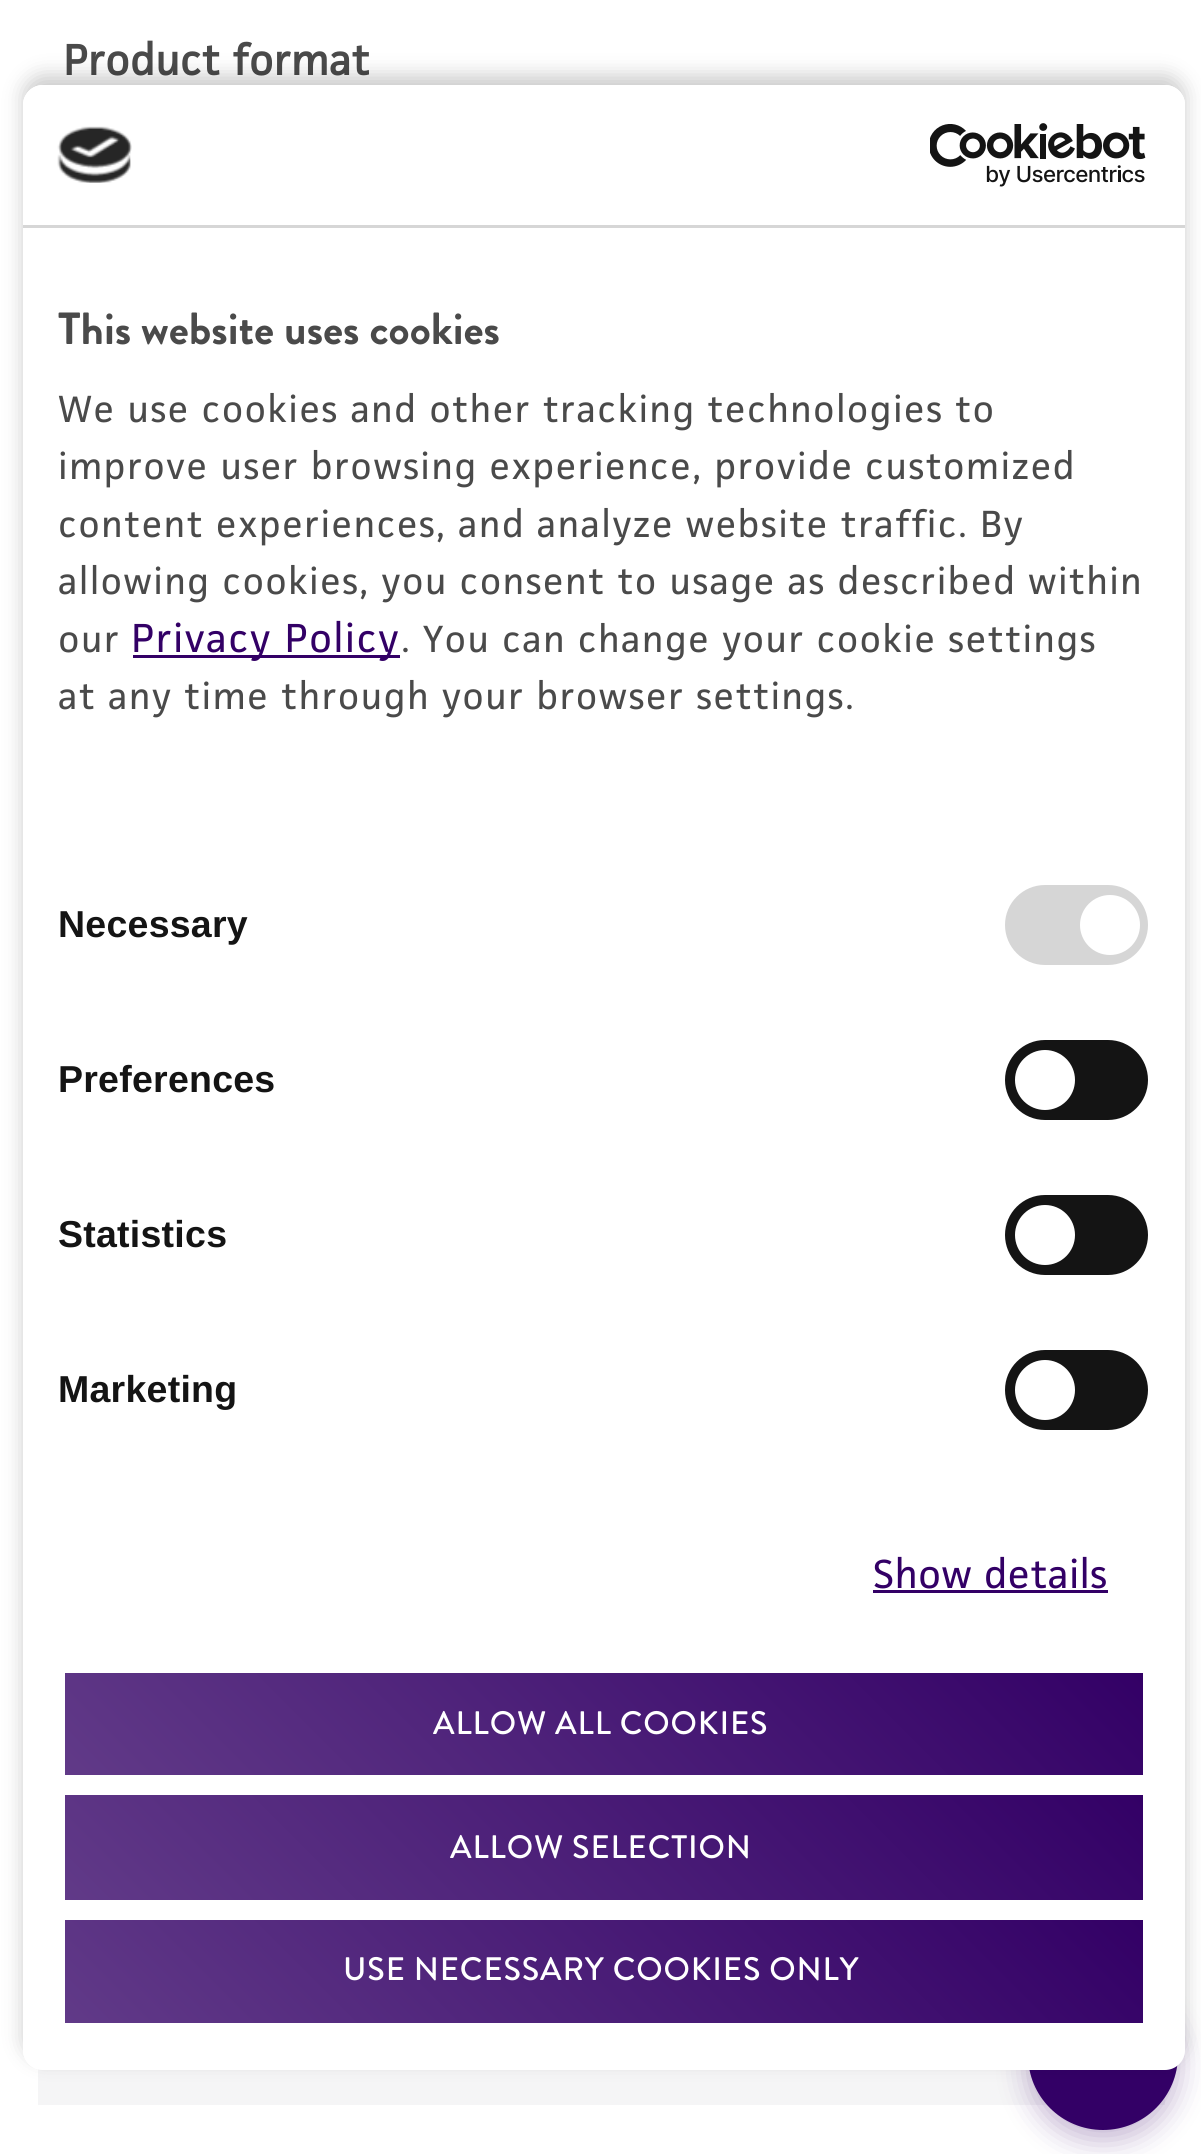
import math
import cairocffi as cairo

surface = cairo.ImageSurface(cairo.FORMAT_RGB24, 1201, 2154)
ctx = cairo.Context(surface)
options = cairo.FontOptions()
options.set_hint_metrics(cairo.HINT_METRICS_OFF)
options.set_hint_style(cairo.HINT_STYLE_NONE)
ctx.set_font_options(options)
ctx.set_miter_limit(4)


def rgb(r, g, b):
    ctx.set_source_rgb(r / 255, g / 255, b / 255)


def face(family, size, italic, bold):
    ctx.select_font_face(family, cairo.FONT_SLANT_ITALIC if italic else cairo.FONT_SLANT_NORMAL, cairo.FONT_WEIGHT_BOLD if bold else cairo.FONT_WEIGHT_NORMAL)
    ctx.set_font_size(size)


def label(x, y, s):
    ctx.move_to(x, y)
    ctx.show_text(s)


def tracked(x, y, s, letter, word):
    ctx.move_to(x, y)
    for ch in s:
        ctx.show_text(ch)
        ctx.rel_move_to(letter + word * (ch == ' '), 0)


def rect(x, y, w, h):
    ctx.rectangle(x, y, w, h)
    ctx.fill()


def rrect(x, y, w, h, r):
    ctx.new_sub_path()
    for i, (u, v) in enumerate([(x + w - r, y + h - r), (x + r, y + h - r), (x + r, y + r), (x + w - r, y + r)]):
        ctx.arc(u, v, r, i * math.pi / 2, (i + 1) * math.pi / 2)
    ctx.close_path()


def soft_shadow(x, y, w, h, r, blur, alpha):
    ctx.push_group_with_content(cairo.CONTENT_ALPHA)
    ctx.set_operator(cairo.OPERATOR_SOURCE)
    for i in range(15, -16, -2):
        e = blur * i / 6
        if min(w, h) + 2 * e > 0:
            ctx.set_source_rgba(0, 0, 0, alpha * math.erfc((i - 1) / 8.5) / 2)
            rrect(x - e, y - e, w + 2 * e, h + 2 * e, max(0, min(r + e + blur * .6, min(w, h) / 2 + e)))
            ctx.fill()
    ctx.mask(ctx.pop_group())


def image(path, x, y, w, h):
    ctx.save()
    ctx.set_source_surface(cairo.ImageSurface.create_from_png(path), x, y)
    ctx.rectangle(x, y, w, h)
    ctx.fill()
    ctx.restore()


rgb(255, 255, 255)
ctx.paint()
face('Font', 40, 0, 1)
rgb(74, 74, 74)
label(63, 75, 'Product format')
rgb(245, 245, 246)
rect(38, 2069, 1127, 36)
rgb(51, 0, 102)
soft_shadow(1028, 1990, 150, 150, 75, 15, 0.3)
rgb(51, 0, 102)
ctx.arc(1103, 2055, 73.5, 0, 2 * math.pi)
ctx.fill_preserve()
ctx.set_line_width(3)
ctx.stroke()
ctx.save()
ctx.set_fill_rule(cairo.FILL_RULE_EVEN_ODD)
ctx.new_path()
ctx.move_to(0, 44)
ctx.line_to(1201, 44)
ctx.line_to(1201, 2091)
ctx.line_to(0, 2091)
ctx.close_path()
ctx.move_to(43, 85)
ctx.line_to(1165, 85)
ctx.curve_to(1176, 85, 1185, 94, 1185, 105)
ctx.line_to(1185, 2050)
ctx.curve_to(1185, 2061, 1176, 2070, 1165, 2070)
ctx.line_to(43, 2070)
ctx.curve_to(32, 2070, 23, 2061, 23, 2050)
ctx.line_to(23, 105)
ctx.curve_to(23, 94, 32, 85, 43, 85)
ctx.close_path()
ctx.clip()
rgb(0, 0, 0)
soft_shadow(23, 75, 1162, 1985, 20, 10, 0.2)
ctx.restore()
rgb(255, 255, 255)
rrect(23, 85, 1162, 1985, 20)
ctx.fill()
rgb(214, 214, 214)
rect(23, 225, 1162, 3)
image('image0.png', 57, 126, 75, 57)
image('image1.png', 930, 123, 216, 64)
face('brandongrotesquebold', 45, 0, 1)
rgb(74, 74, 74)
label(58, 344, 'This website uses cookies')
face('Font', 35, 0, 0)
tracked(58, 422, 'We use cookies and other tracking technologies to', 1.25, 0)
tracked(58, 479, 'improve user browsing experience, provide customized', 1.25, 0)
tracked(58, 537, 'content experiences, and analyze website traffic. By', 1.25, 0)
tracked(58, 594, 'allowing cookies, you consent to usage as described within', 1.25, 0)
tracked(58, 652, 'our', 1.25, 0)
rgb(51, 0, 102)
rect(133, 655, 267, 3)
face('Font', 37.5, 0, 0)
tracked(131, 652, 'Privacy Policy', 1.25, 0)
face('Font', 35, 0, 0)
rgb(74, 74, 74)
tracked(401, 652, '. You can change your cookie settings', 1.25, 0)
tracked(58, 709, 'at any time through your browser settings.', 1.25, 0)
face('Liberation Sans', 37.5, 0, 1)
rgb(20, 20, 20)
tracked(58, 937, 'Necessary', 0.25, 0)
rgb(214, 214, 214)
rrect(1005, 885, 143, 80, 40)
ctx.fill()
rgb(255, 255, 255)
ctx.arc(1110, 925, 30, 0, 2 * math.pi)
ctx.fill()
rgb(20, 20, 20)
tracked(58, 1092, 'Preferences', 0.25, 0)
rrect(1005, 1040, 143, 80, 40)
ctx.fill()
rgb(255, 255, 255)
ctx.arc(1045, 1080, 30, 0, 2 * math.pi)
ctx.fill()
rgb(20, 20, 20)
tracked(58, 1247, 'Statistics', 0.25, 0)
rrect(1005, 1195, 143, 80, 40)
ctx.fill()
rgb(255, 255, 255)
ctx.arc(1045, 1235, 30, 0, 2 * math.pi)
ctx.fill()
rgb(20, 20, 20)
tracked(58, 1402, 'Marketing', 0.25, 0)
rrect(1005, 1350, 143, 80, 40)
ctx.fill()
rgb(255, 255, 255)
ctx.arc(1045, 1390, 30, 0, 2 * math.pi)
ctx.fill()
face('Font', 37.5, 0, 0)
rgb(51, 0, 102)
tracked(873, 1588, 'Show details', 0.25, 0)
rect(873, 1590, 235, 3)
gradient = cairo.LinearGradient(308, 2019, 898, 1429)
gradient.add_color_stop_rgba(0, 0.38, 0.227, 0.533, 1)
gradient.add_color_stop_rgba(1, 0.2, 0, 0.4, 1)
ctx.set_source(gradient)
rect(65, 1673, 1078, 102)
face('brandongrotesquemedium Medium', 32.5, 0, 0)
rgb(255, 255, 255)
tracked(433, 1734, 'ALLOW ALL COOKIES', 0.9, 0)
gradient = cairo.LinearGradient(307, 2144, 898, 1552)
gradient.add_color_stop_rgba(0, 0.38, 0.227, 0.533, 1)
gradient.add_color_stop_rgba(1, 0.2, 0, 0.4, 1)
ctx.set_source(gradient)
rect(65, 1795, 1078, 105)
rgb(255, 255, 255)
tracked(450, 1858, 'ALLOW SELECTION', 0.9, 0)
gradient = cairo.LinearGradient(308, 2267, 898, 1677)
gradient.add_color_stop_rgba(0, 0.38, 0.227, 0.533, 1)
gradient.add_color_stop_rgba(1, 0.2, 0, 0.4, 1)
ctx.set_source(gradient)
rect(65, 1920, 1078, 103)
rgb(255, 255, 255)
tracked(343, 1980, 'USE NECESSARY COOKIES ONLY', 0.9, 0)
surface.write_to_png('render.png')
